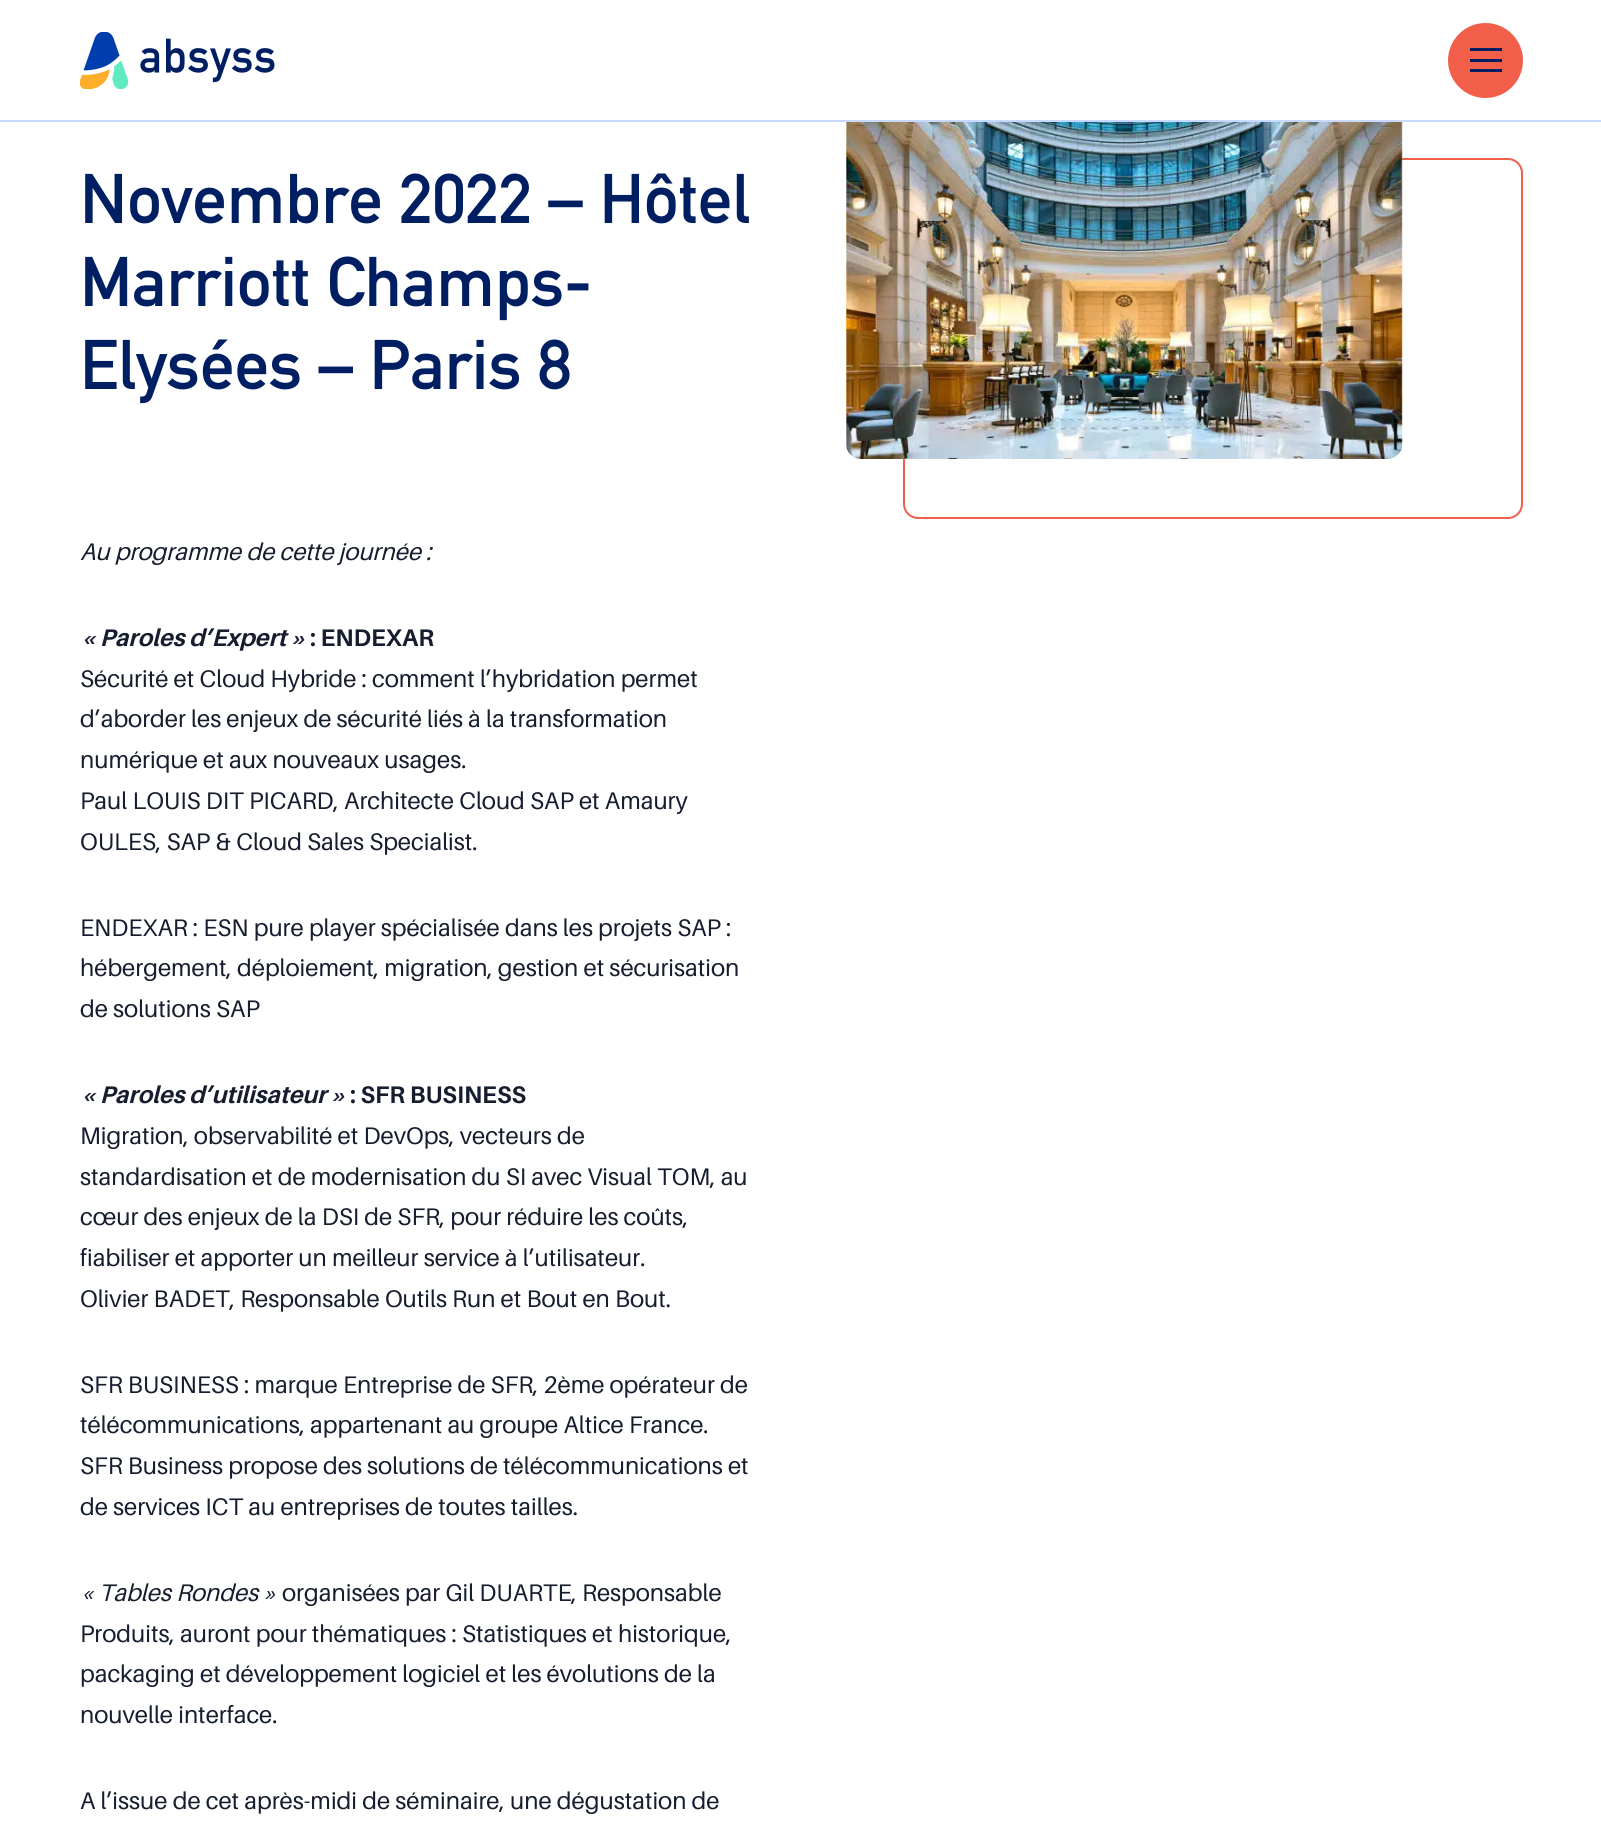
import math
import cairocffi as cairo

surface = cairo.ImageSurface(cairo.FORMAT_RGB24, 1601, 1822)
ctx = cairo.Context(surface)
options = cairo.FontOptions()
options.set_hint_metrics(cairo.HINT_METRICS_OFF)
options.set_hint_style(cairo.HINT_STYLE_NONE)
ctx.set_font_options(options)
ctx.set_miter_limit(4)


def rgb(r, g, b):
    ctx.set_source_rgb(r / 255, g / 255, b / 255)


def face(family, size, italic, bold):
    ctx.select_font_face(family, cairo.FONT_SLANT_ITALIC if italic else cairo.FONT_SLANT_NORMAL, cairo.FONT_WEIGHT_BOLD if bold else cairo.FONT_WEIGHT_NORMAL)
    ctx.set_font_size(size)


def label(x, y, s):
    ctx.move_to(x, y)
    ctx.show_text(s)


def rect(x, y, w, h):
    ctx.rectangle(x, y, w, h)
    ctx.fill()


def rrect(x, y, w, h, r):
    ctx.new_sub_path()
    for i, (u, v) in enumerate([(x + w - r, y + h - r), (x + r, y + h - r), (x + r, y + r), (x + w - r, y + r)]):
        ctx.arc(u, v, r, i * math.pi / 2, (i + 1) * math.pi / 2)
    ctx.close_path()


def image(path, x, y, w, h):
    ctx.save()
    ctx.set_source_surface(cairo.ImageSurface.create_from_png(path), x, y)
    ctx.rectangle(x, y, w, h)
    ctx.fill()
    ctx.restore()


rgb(255, 255, 255)
ctx.paint()
rgb(200, 217, 255)
rect(0, 120, 1601, 2)
image('image0.png', 80, 32, 195, 57)
rgb(241, 95, 75)
ctx.arc(1485.5, 60.5, 37.5, 0, 2 * math.pi)
ctx.fill()
rgb(0, 31, 98)
rect(1470, 48, 32, 3)
rect(1470, 59, 32, 3)
rect(1470, 69, 32, 3)
face('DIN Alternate', 69, 0, 1)
label(80, 223, 'Novembre 2022 – Hôtel')
label(80, 306, 'Marriott Champs-')
label(80, 389, 'Elysées – Paris 8')
face('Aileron', 24, 1, 0)
rgb(21, 29, 46)
label(80, 560, 'Au programme de cette journée :')
face('Aileron', 24, 1, 1)
label(80, 646, '« Paroles d’Expert »')
face('Aileron', 24, 0, 1)
label(310, 646, ': ENDEXAR')
face('Aileron', 24, 0, 0)
label(80, 687, 'Sécurité et Cloud Hybride : comment l’hybridation permet')
label(80, 727, 'd’aborder les enjeux de sécurité liés à la transformation')
label(80, 768, 'numérique et aux nouveaux usages.')
label(80, 809, 'Paul LOUIS DIT PICARD, Architecte Cloud SAP et Amaury')
label(80, 850, 'OULES, SAP & Cloud Sales Specialist.')
label(80, 936, 'ENDEXAR : ESN pure player spécialisée dans les projets SAP :')
label(80, 976, 'hébergement, déploiement, migration, gestion et sécurisation')
label(80, 1017, 'de solutions SAP')
face('Aileron', 24, 1, 1)
label(80, 1103, '« Paroles d’utilisateur »')
face('Aileron', 24, 0, 1)
label(350, 1103, ': SFR BUSINESS')
face('Aileron', 24, 0, 0)
label(80, 1144, 'Migration, observabilité et DevOps, vecteurs de')
label(80, 1185, 'standardisation et de modernisation du SI avec Visual TOM, au')
label(80, 1225, 'cœur des enjeux de la DSI de SFR, pour réduire les coûts,')
label(80, 1266, 'fiabiliser et apporter un meilleur service à l’utilisateur.')
label(80, 1307, 'Olivier BADET, Responsable Outils Run et Bout en Bout.')
label(80, 1393, 'SFR BUSINESS : marque Entreprise de SFR, 2ème opérateur de')
label(80, 1433, 'télécommunications, appartenant au groupe Altice France.')
label(80, 1474, 'SFR Business propose des solutions de télécommunications et')
label(80, 1515, 'de services ICT au entreprises de toutes tailles.')
face('Aileron', 24, 1, 0)
label(80, 1601, '« Tables Rondes »')
face('Aileron', 24, 0, 0)
label(282, 1601, 'organisées par Gil DUARTE, Responsable')
label(80, 1642, 'Produits, auront pour thématiques : Statistiques et historique,')
label(80, 1682, 'packaging et développement logiciel et les évolutions de la')
label(80, 1723, 'nouvelle interface.')
label(80, 1809, 'A l’issue de cet après-midi de séminaire, une dégustation de')
rrect(904, 159, 618, 359, 14)
rgb(241, 95, 75)
ctx.stroke()
image('image1.png', 846, 122, 557, 337)
surface.write_to_png('render.png')
